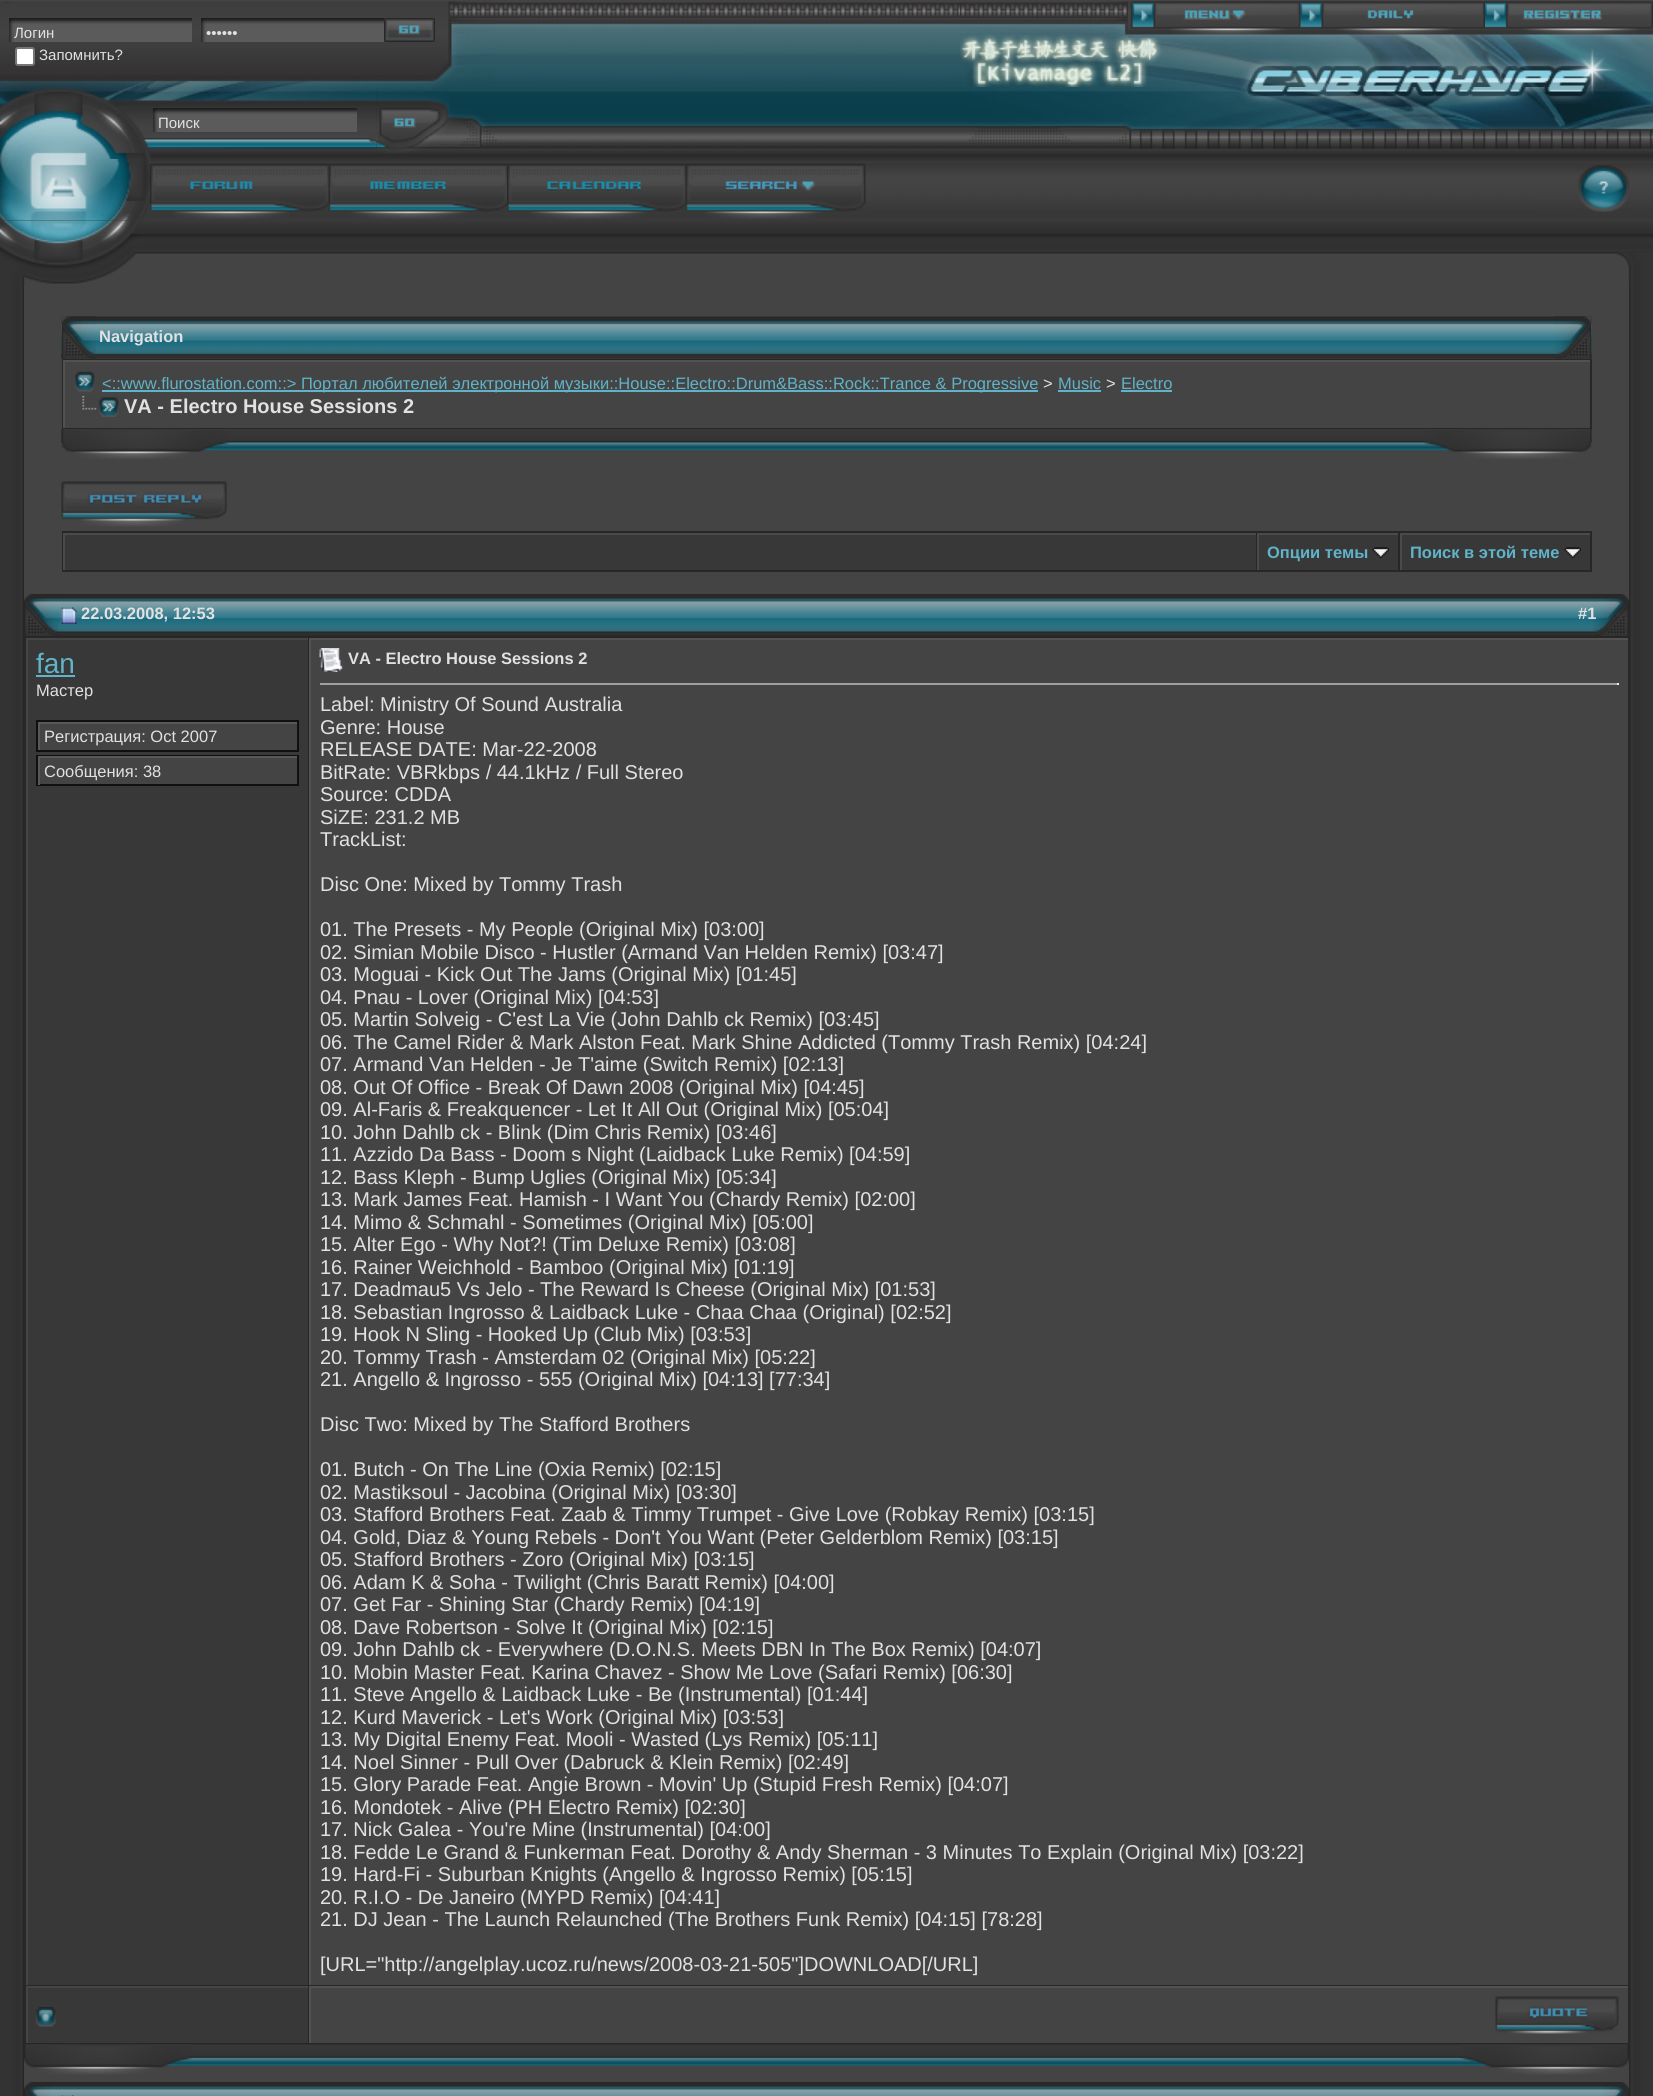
import math
import cairocffi as cairo

surface = cairo.ImageSurface(cairo.FORMAT_RGB24, 1653, 2096)
ctx = cairo.Context(surface)
options = cairo.FontOptions()
options.set_hint_metrics(cairo.HINT_METRICS_OFF)
options.set_hint_style(cairo.HINT_STYLE_NONE)
ctx.set_font_options(options)
ctx.set_miter_limit(4)


def rgb(r, g, b):
    ctx.set_source_rgb(r / 255, g / 255, b / 255)


def face(family, size, italic, bold):
    ctx.select_font_face(family, cairo.FONT_SLANT_ITALIC if italic else cairo.FONT_SLANT_NORMAL, cairo.FONT_WEIGHT_BOLD if bold else cairo.FONT_WEIGHT_NORMAL)
    ctx.set_font_size(size)


def label(x, y, s):
    ctx.move_to(x, y)
    ctx.show_text(s)


def rect(x, y, w, h):
    ctx.rectangle(x, y, w, h)
    ctx.fill()


def rrect(x, y, w, h, r):
    ctx.new_sub_path()
    for i, (u, v) in enumerate([(x + w - r, y + h - r), (x + r, y + h - r), (x + r, y + r), (x + w - r, y + r)]):
        ctx.arc(u, v, r, i * math.pi / 2, (i + 1) * math.pi / 2)
    ctx.close_path()


def image(path, x, y, w, h):
    ctx.save()
    ctx.set_source_surface(cairo.ImageSurface.create_from_png(path), x, y)
    ctx.rectangle(x, y, w, h)
    ctx.fill()
    ctx.restore()


rgb(68, 68, 68)
ctx.paint()
image('image0.png', 495, 2, 465, 85)
image('image1.png', 0, 1, 495, 86)
image('image2.png', 960, 1, 693, 86)
image('image3.png', 1128, 1, 173, 37)
image('image4.png', 1300, 1, 185, 37)
image('image5.png', 1485, 1, 168, 37)
image('image6.png', 9, 18, 183, 24)
face('Liberation Sans', 15, 0, 0)
rgb(225, 225, 225)
label(14, 38, 'Логин')
image('image6.png', 201, 18, 183, 24)
label(206, 38, '••••••')
image('image7.png', 384, 18, 51, 24)
rgb(255, 255, 255)
rrect(16, 48, 18, 17, 2)
ctx.fill_preserve()
rgb(118, 118, 118)
ctx.stroke()
rgb(225, 225, 225)
label(39, 60, 'Запомнить?')
image('image8.png', 376, 87, 1277, 72)
image('image9.png', 969, 87, 684, 62)
image('image10.png', 0, 87, 377, 72)
image('image11.png', 153, 108, 204, 24)
label(158, 128, 'Поиск')
image('image12.png', 376, 87, 74, 66)
image('image13.png', 450, 109, 47, 38)
image('image14.png', 0, 159, 1653, 62)
image('image15.png', 0, 159, 150, 62)
image('image16.png', 150, 163, 179, 56)
image('image17.png', 328, 163, 179, 56)
image('image18.png', 507, 163, 179, 56)
image('image19.png', 685, 163, 181, 56)
image('image20.png', 1578, 165, 51, 47)
image('image21.png', 0, 220, 1653, 34)
image('image22.png', 0, 220, 141, 65)
image('image23.png', 1616, 252, 37, 33)
image('image24.png', 0, 285, 24, 1811)
image('image25.png', 1629, 285, 24, 1811)
image('image26.png', 61, 316, 1531, 43)
image('image27.png', 61, 316, 35, 43)
image('image28.png', 1554, 316, 38, 43)
face('Liberation Sans', 16.5, 0, 1)
label(99, 342, 'Navigation')
rgb(39, 39, 39)
rect(62, 359, 1530, 70)
rgb(68, 68, 68)
rect(65, 362, 1525, 66)
rgb(84, 81, 81)
rect(63, 360, 1527, 2)
rect(63, 360, 2, 68)
image('image29.png', 75, 371, 20, 21)
rgb(96, 179, 200)
rect(102, 390, 936, 2)
face('Liberation Sans', 16.5, 0, 0)
label(102, 389, '<::www.flurostation.com::> Портал любителей электронной музыки::House::Electro::Drum&Bass::Rock::Trance & Progressive')
rgb(225, 225, 225)
label(1043, 389, '>')
rgb(96, 179, 200)
label(1058, 389, 'Music')
rect(1058, 390, 43, 2)
rgb(225, 225, 225)
label(1106, 389, '>')
rgb(96, 179, 200)
label(1121, 389, 'Electro')
rect(1121, 390, 51, 2)
image('image30.png', 82, 396, 37, 21)
face('Liberation Sans', 20, 0, 1)
rgb(225, 225, 225)
label(124, 413, 'VA - Electro House Sessions 2')
image('image31.png', 61, 429, 1531, 22)
image('image32.png', 61, 429, 169, 30)
image('image33.png', 1424, 429, 168, 30)
image('image34.png', 61, 481, 166, 46)
rgb(39, 39, 39)
rect(62, 531, 1530, 41)
rgb(56, 56, 56)
rect(65, 535, 1191, 35)
rgb(75, 73, 73)
rect(63, 533, 1193, 2)
rect(63, 533, 2, 37)
rgb(56, 56, 56)
rect(1259, 535, 139, 35)
rgb(75, 73, 73)
rect(1257, 533, 141, 2)
rect(1257, 533, 2, 37)
face('Liberation Sans', 16.5, 0, 1)
rgb(96, 179, 200)
label(1267, 558, 'Опции темы')
image('image35.png', 1372, 547, 17, 11)
rgb(56, 56, 56)
rect(1402, 535, 188, 35)
rgb(75, 73, 73)
rect(1400, 533, 190, 2)
rect(1400, 533, 2, 37)
rgb(96, 179, 200)
label(1410, 558, 'Поиск в этой теме')
image('image36.png', 1564, 547, 17, 11)
image('image37.png', 58, 594, 1535, 42)
image('image38.png', 24, 594, 35, 42)
image('image39.png', 1593, 594, 36, 42)
image('image40.png', 61, 607, 16, 17)
rgb(225, 225, 225)
label(81, 619, '22.03.2008, 12:53')
label(1578, 619, '#1')
rgb(39, 39, 39)
rect(24, 636, 1605, 1409)
rgb(56, 56, 56)
rect(28, 640, 280, 1345)
rgb(70, 69, 69)
rect(26, 638, 282, 2)
rect(26, 638, 2, 1347)
face('Liberation Sans', 28, 0, 0)
rgb(96, 179, 200)
label(36, 673, 'fan')
rect(36, 675, 39, 2)
face('Liberation Sans', 16.5, 0, 0)
rgb(225, 225, 225)
label(36, 696, 'Мастер')
rgb(68, 68, 68)
rect(40, 724, 257, 26)
ctx.rectangle(37, 721, 261, 30)
rgb(16, 16, 16)
ctx.stroke()
rgb(91, 87, 87)
rect(38, 722, 259, 2)
rect(38, 722, 2, 28)
rgb(225, 225, 225)
label(44, 742, 'Регистрация: Oct 2007')
rgb(68, 68, 68)
rect(40, 758, 257, 26)
ctx.rectangle(37, 756, 261, 29)
rgb(16, 16, 16)
ctx.stroke()
rgb(91, 87, 87)
rect(38, 756, 259, 2)
rect(38, 756, 2, 29)
rgb(225, 225, 225)
label(44, 777, 'Сообщения: 38')
rgb(68, 68, 68)
rect(311, 640, 1317, 1345)
rgb(84, 81, 81)
rect(309, 638, 1319, 2)
rect(309, 638, 2, 1347)
image('image41.png', 319, 648, 24, 24)
face('Liberation Sans', 16.5, 0, 1)
rgb(225, 225, 225)
label(348, 664, 'VA - Electro House Sessions 2')
rgb(159, 159, 159)
rect(320, 683, 1299, 2)
rgb(238, 238, 238)
rect(1617, 683, 2, 2)
face('Liberation Sans', 20, 0, 0)
rgb(225, 225, 225)
label(320, 711, 'Label: Ministry Of Sound Australia')
label(320, 734, 'Genre: House')
label(320, 756, 'RELEASE DATE: Mar-22-2008')
label(320, 779, 'BitRate: VBRkbps / 44.1kHz / Full Stereo')
label(320, 801, 'Source: CDDA')
label(320, 824, 'SiZE: 231.2 MB')
label(320, 846, 'TrackList:')
label(320, 891, 'Disc One: Mixed by Tommy Trash')
label(320, 936, '01. The Presets - My People (Original Mix) [03:00]')
label(320, 959, '02. Simian Mobile Disco - Hustler (Armand Van Helden Remix) [03:47]')
label(320, 981, '03. Moguai - Kick Out The Jams (Original Mix) [01:45]')
label(320, 1004, '04. Pnau - Lover (Original Mix) [04:53]')
label(320, 1026, '05. Martin Solveig - C\'est La Vie (John Dahlb ck Remix) [03:45]')
label(320, 1049, '06. The Camel Rider & Mark Alston Feat. Mark Shine Addicted (Tommy Trash Remix) [04:24]')
label(320, 1071, '07. Armand Van Helden - Je T\'aime (Switch Remix) [02:13]')
label(320, 1094, '08. Out Of Office - Break Of Dawn 2008 (Original Mix) [04:45]')
label(320, 1116, '09. Al-Faris & Freakquencer - Let It All Out (Original Mix) [05:04]')
label(320, 1139, '10. John Dahlb ck - Blink (Dim Chris Remix) [03:46]')
label(320, 1161, '11. Azzido Da Bass - Doom s Night (Laidback Luke Remix) [04:59]')
label(320, 1184, '12. Bass Kleph - Bump Uglies (Original Mix) [05:34]')
label(320, 1206, '13. Mark James Feat. Hamish - I Want You (Chardy Remix) [02:00]')
label(320, 1229, '14. Mimo & Schmahl - Sometimes (Original Mix) [05:00]')
label(320, 1251, '15. Alter Ego - Why Not?! (Tim Deluxe Remix) [03:08]')
label(320, 1274, '16. Rainer Weichhold - Bamboo (Original Mix) [01:19]')
label(320, 1296, '17. Deadmau5 Vs Jelo - The Reward Is Cheese (Original Mix) [01:53]')
label(320, 1319, '18. Sebastian Ingrosso & Laidback Luke - Chaa Chaa (Original) [02:52]')
label(320, 1341, '19. Hook N Sling - Hooked Up (Club Mix) [03:53]')
label(320, 1364, '20. Tommy Trash - Amsterdam 02 (Original Mix) [05:22]')
label(320, 1386, '21. Angello & Ingrosso - 555 (Original Mix) [04:13] [77:34]')
label(320, 1431, 'Disc Two: Mixed by The Stafford Brothers')
label(320, 1476, '01. Butch - On The Line (Oxia Remix) [02:15]')
label(320, 1499, '02. Mastiksoul - Jacobina (Original Mix) [03:30]')
label(320, 1521, '03. Stafford Brothers Feat. Zaab & Timmy Trumpet - Give Love (Robkay Remix) [03:15]')
label(320, 1544, '04. Gold, Diaz & Young Rebels - Don\'t You Want (Peter Gelderblom Remix) [03:15]')
label(320, 1566, '05. Stafford Brothers - Zoro (Original Mix) [03:15]')
label(320, 1589, '06. Adam K & Soha - Twilight (Chris Baratt Remix) [04:00]')
label(320, 1611, '07. Get Far - Shining Star (Chardy Remix) [04:19]')
label(320, 1634, '08. Dave Robertson - Solve It (Original Mix) [02:15]')
label(320, 1656, '09. John Dahlb ck - Everywhere (D.O.N.S. Meets DBN In The Box Remix) [04:07]')
label(320, 1679, '10. Mobin Master Feat. Karina Chavez - Show Me Love (Safari Remix) [06:30]')
label(320, 1701, '11. Steve Angello & Laidback Luke - Be (Instrumental) [01:44]')
label(320, 1724, '12. Kurd Maverick - Let\'s Work (Original Mix) [03:53]')
label(320, 1746, '13. My Digital Enemy Feat. Mooli - Wasted (Lys Remix) [05:11]')
label(320, 1769, '14. Noel Sinner - Pull Over (Dabruck & Klein Remix) [02:49]')
label(320, 1791, '15. Glory Parade Feat. Angie Brown - Movin\' Up (Stupid Fresh Remix) [04:07]')
label(320, 1814, '16. Mondotek - Alive (PH Electro Remix) [02:30]')
label(320, 1836, '17. Nick Galea - You\'re Mine (Instrumental) [04:00]')
label(320, 1859, '18. Fedde Le Grand & Funkerman Feat. Dorothy & Andy Sherman - 3 Minutes To Explain (Original Mix) [03:22]')
label(320, 1881, '19. Hard-Fi - Suburban Knights (Angello & Ingrosso Remix) [05:15]')
label(320, 1904, '20. R.I.O - De Janeiro (MYPD Remix) [04:41]')
label(320, 1926, '21. DJ Jean - The Launch Relaunched (The Brothers Funk Remix) [04:15] [78:28]')
label(320, 1971, '[URL="http://angelplay.ucoz.ru/news/2008-03-21-505"]DOWNLOAD[/URL]')
rgb(56, 56, 56)
rect(28, 1988, 280, 55)
rgb(70, 69, 69)
rect(26, 1986, 282, 2)
rect(26, 1986, 2, 57)
image('image42.png', 36, 2007, 20, 20)
rgb(68, 68, 68)
rect(311, 1988, 1317, 55)
rgb(84, 81, 81)
rect(309, 1986, 1319, 2)
rect(309, 1986, 2, 57)
image('image43.png', 1495, 1996, 124, 38)
image('image44.png', 24, 2044, 1605, 22)
image('image45.png', 24, 2044, 168, 31)
image('image46.png', 1460, 2044, 169, 31)
image('image47.png', 52, 2082, 1549, 14)
image('image48.png', 24, 2082, 28, 14)
image('image49.png', 1601, 2082, 28, 14)
image('image50.png', 61, 2095, 13, 1)
surface.write_to_png('render.png')
